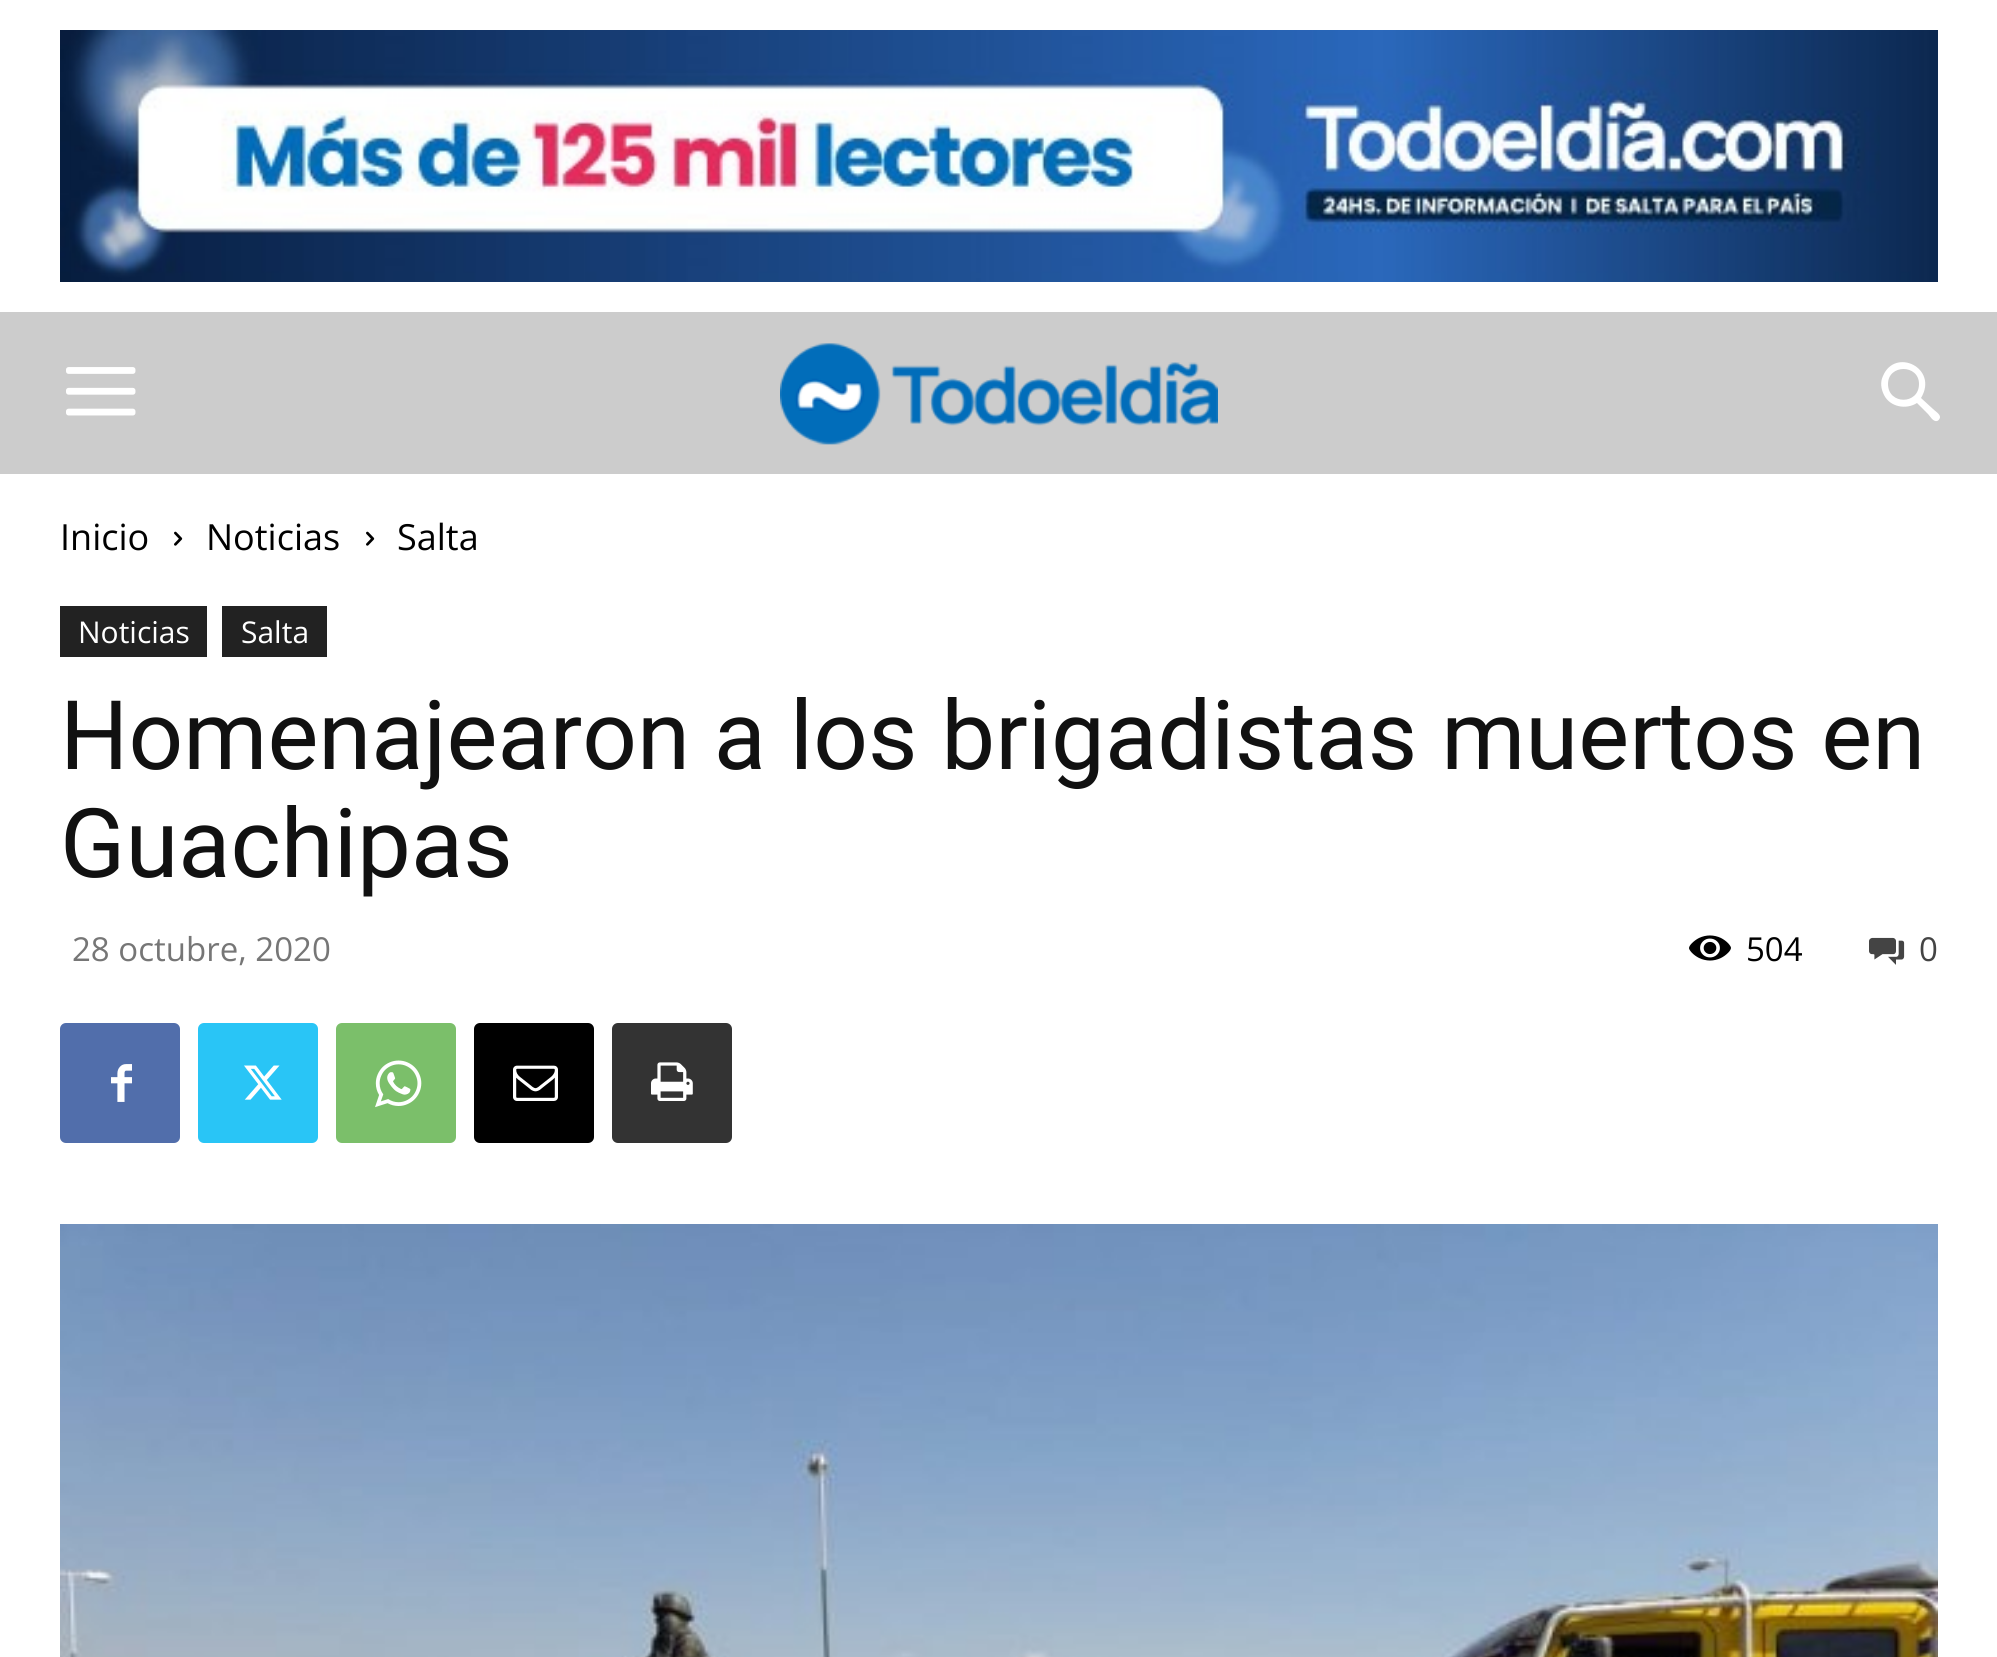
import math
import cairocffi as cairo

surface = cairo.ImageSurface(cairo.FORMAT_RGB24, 1997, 1657)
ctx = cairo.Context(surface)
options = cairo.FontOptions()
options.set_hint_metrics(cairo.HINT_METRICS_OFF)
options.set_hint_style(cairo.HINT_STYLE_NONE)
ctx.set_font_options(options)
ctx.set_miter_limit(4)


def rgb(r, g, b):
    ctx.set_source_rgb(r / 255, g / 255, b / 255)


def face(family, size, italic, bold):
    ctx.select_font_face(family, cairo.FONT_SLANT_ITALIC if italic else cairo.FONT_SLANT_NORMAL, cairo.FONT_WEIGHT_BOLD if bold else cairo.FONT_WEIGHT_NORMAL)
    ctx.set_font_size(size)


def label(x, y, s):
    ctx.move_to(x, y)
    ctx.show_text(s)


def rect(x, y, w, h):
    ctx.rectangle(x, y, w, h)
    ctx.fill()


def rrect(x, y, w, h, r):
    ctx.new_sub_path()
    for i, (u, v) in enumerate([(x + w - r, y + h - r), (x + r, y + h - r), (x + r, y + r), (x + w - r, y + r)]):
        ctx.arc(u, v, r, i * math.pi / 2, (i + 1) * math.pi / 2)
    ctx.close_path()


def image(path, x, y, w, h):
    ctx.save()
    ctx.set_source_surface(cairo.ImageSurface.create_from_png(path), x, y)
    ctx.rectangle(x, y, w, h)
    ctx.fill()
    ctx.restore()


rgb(255, 255, 255)
ctx.paint()
image('image0.png', 60, 30, 1878, 252)
rgb(204, 204, 204)
rect(0, 312, 1997, 162)
image('image1.png', 66, 367, 70, 49)
image('image2.png', 780, 343, 438, 102)
rgb(255, 255, 255)
ctx.new_path()
ctx.move_to(1919, 384)
ctx.curve_to(1919, 405, 1888, 405, 1888, 384)
ctx.curve_to(1888, 364, 1919, 364, 1919, 384)
ctx.close_path()
ctx.move_to(1940, 417)
ctx.curve_to(1940, 414, 1935, 411, 1933, 409)
ctx.line_to(1921, 398)
ctx.curve_to(1939, 368, 1895, 347, 1883, 376)
ctx.curve_to(1880, 382, 1881, 389, 1884, 395)
ctx.curve_to(1890, 407, 1906, 410, 1917, 403)
ctx.line_to(1928, 414)
ctx.curve_to(1930, 416, 1933, 422, 1937, 421)
ctx.curve_to(1938, 421, 1940, 419, 1940, 417)
ctx.close_path()
ctx.fill()
face('Open Sans', 36, 0, 0)
rgb(0, 0, 0)
label(60, 550, 'Inicio')
image('image3.png', 174, 531, 9, 15)
label(206, 550, 'Noticias')
image('image3.png', 366, 531, 9, 15)
label(397, 550, 'Salta')
rgb(34, 34, 34)
rect(60, 606, 147, 51)
face('Open Sans', 30, 0, 0)
rgb(255, 255, 255)
label(78, 643, 'Noticias')
rgb(34, 34, 34)
rect(222, 606, 105, 51)
rgb(255, 255, 255)
label(241, 643, 'Salta')
face('Roboto', 96, 0, 0)
rgb(17, 17, 17)
label(60, 769, 'Homenajearon a los brigadistas muertos en')
label(60, 877, 'Guachipas')
face('Open Sans', 33, 0, 0)
rgb(118, 118, 118)
label(72, 961, '28 octubre, 2020')
image('image4.png', 1689, 935, 42, 26)
rgb(0, 0, 0)
label(1746, 961, '504')
image('image5.png', 1869, 937, 36, 28)
rgb(68, 68, 68)
label(1919, 961, '0')
rgb(81, 110, 171)
rrect(60, 1023, 120, 120, 6)
ctx.fill()
image('image6.png', 111, 1064, 21, 38)
rgb(41, 197, 246)
rrect(198, 1023, 120, 120, 6)
ctx.fill()
image('image7.png', 244, 1065, 38, 35)
rgb(123, 191, 106)
rrect(336, 1023, 120, 120, 6)
ctx.fill()
image('image8.png', 375, 1060, 47, 48)
rgb(0, 0, 0)
rrect(474, 1023, 120, 120, 6)
ctx.fill()
image('image9.png', 513, 1065, 45, 36)
rgb(51, 51, 51)
rrect(612, 1023, 120, 120, 6)
ctx.fill()
image('image10.png', 651, 1062, 42, 39)
image('image11.png', 60, 1224, 1878, 433)
surface.write_to_png('render.png')
